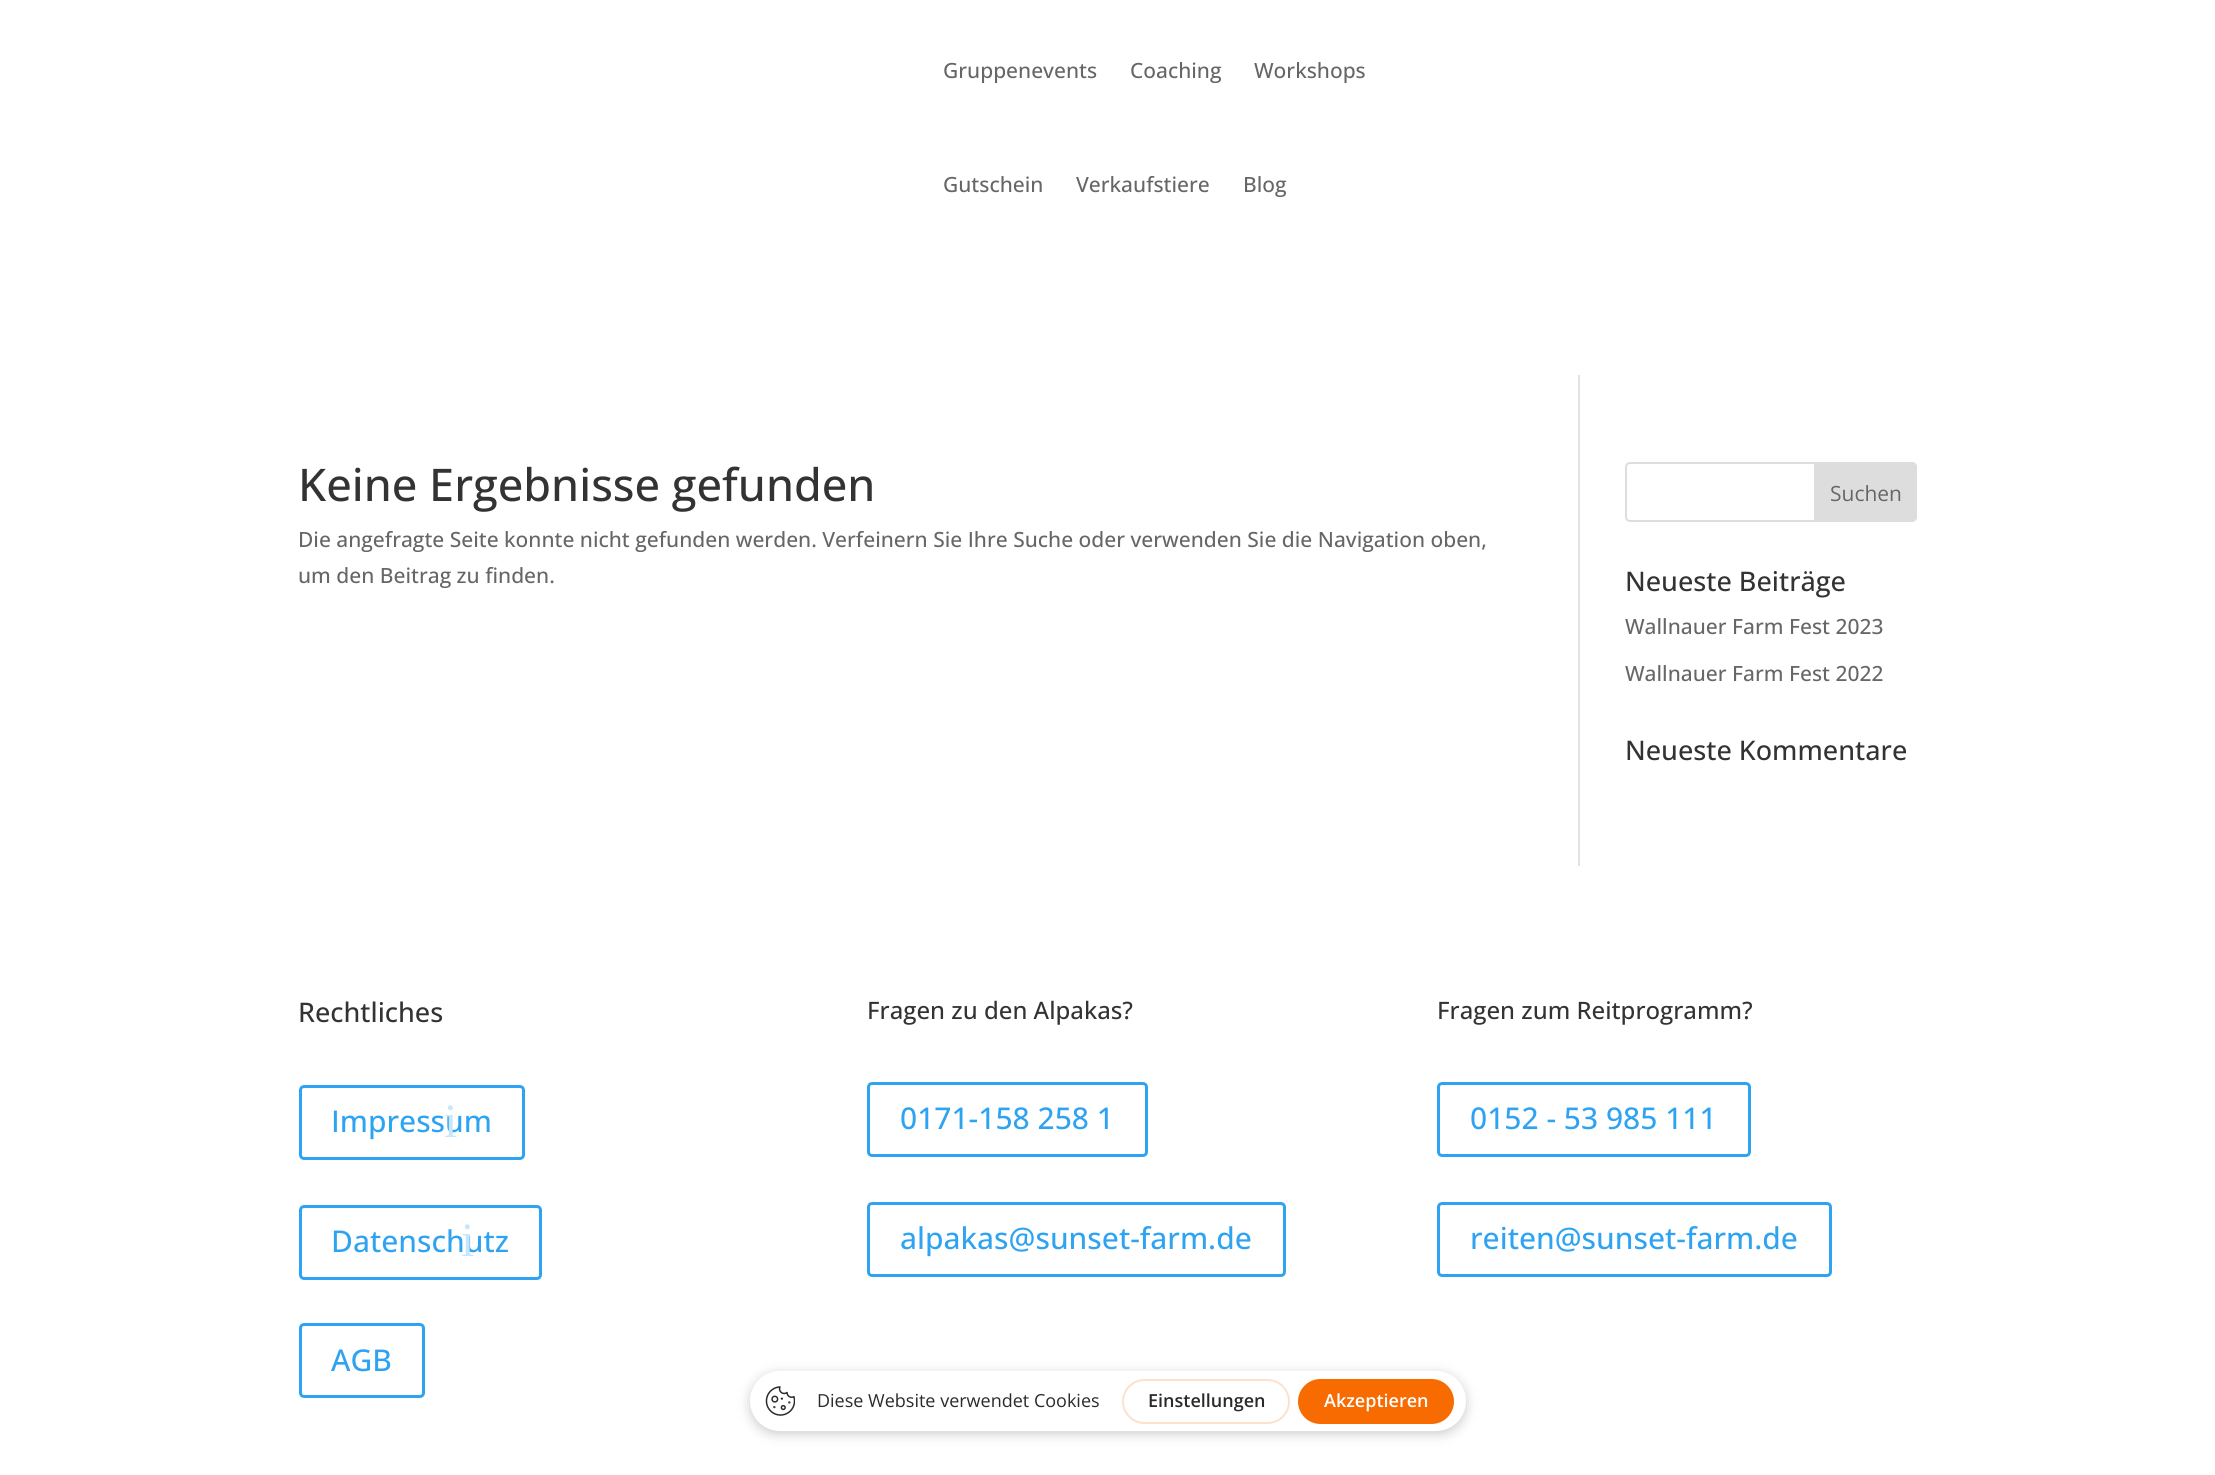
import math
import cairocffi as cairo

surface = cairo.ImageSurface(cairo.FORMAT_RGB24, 2215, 1475)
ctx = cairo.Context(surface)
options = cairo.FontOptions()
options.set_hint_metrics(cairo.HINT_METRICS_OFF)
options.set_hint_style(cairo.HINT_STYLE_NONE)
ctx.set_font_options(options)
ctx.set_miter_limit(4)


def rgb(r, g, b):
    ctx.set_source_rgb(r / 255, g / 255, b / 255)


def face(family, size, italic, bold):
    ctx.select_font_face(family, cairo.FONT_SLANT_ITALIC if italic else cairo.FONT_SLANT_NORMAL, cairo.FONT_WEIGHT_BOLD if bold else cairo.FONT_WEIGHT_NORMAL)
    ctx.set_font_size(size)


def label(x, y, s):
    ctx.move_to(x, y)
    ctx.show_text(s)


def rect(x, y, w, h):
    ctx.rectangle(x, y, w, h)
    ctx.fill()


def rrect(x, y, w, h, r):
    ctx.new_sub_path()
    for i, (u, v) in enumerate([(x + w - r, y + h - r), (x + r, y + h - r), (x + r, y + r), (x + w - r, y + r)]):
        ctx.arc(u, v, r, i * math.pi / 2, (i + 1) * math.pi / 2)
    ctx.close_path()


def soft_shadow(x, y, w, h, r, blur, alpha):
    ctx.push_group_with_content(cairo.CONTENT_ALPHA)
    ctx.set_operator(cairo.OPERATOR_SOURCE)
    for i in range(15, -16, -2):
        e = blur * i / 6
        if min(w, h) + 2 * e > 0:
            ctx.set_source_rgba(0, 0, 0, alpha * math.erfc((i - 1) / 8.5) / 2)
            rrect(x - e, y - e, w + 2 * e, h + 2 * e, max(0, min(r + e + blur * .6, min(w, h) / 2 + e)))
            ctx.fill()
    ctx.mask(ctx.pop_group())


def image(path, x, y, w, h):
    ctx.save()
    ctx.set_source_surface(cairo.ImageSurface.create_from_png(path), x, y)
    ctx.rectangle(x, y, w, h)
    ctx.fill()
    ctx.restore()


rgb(255, 255, 255)
ctx.paint()
face('Open Sans Medium', 21, 0, 0)
rgb(102, 102, 102)
label(943, 78, 'Gruppenevents')
label(1130, 78, 'Coaching')
label(1254, 78, 'Workshops')
label(943, 192, 'Gutschein')
label(1076, 192, 'Verkaufstiere')
label(1243, 192, 'Blog')
rgb(226, 226, 226)
rect(1578, 375, 2, 491)
face('Open Sans Medium', 45, 0, 0)
rgb(51, 51, 51)
label(298, 501, 'Keine Ergebnisse gefunden')
face('Open Sans Medium', 21, 0, 0)
rgb(102, 102, 102)
label(298, 547, 'Die angefragte Seite konnte nicht gefunden werden. Verfeinern Sie Ihre Suche oder verwenden Sie die Navigation oben,')
label(298, 583, 'um den Beitrag zu finden.')
rrect(1626, 463, 290, 58, 4)
rgb(221, 221, 221)
ctx.stroke()
ctx.new_path()
ctx.move_to(1815, 463)
ctx.line_to(1912, 463)
ctx.curve_to(1914, 463, 1916, 465, 1916, 467)
ctx.line_to(1916, 517)
ctx.curve_to(1916, 519, 1914, 521, 1912, 521)
ctx.line_to(1815, 521)
ctx.close_path()
ctx.fill_preserve()
ctx.stroke()
face('Open Sans', 21, 0, 0)
rgb(102, 102, 102)
label(1830, 501, 'Suchen')
face('Open Sans Medium', 27, 0, 0)
rgb(51, 51, 51)
label(1625, 591, 'Neueste Beiträge')
face('Open Sans Medium', 21, 0, 0)
rgb(102, 102, 102)
label(1625, 634, 'Wallnauer Farm Fest 2023')
label(1625, 681, 'Wallnauer Farm Fest 2022')
face('Open Sans Medium', 27, 0, 0)
rgb(51, 51, 51)
label(1625, 760, 'Neueste Kommentare')
label(298, 1022, 'Rechtliches')
rrect(300.5, 1086.5, 223, 72, 3.5)
rgb(46, 163, 242)
ctx.set_line_width(3)
ctx.stroke()
face('Open Sans Medium', 30, 0, 0)
label(331, 1132, 'Impressum')
face('Liberation Serif', 48, 0, 0)
rgb(200, 231, 252)
label(444, 1137, 'i')
rrect(300.5, 1206.5, 240, 72, 3.5)
rgb(46, 163, 242)
ctx.stroke()
face('Open Sans Medium', 30, 0, 0)
label(331, 1252, 'Datenschutz')
face('Liberation Serif', 48, 0, 0)
rgb(200, 231, 252)
label(461, 1256, 'i')
rrect(300.5, 1324.5, 123, 72, 3.5)
rgb(46, 163, 242)
ctx.stroke()
face('Open Sans Medium', 30, 0, 0)
label(331, 1371, 'AGB')
face('Open Sans Medium', 24, 0, 0)
rgb(51, 51, 51)
label(867, 1019, 'Fragen zu den Alpakas?')
rrect(868.5, 1083.5, 278, 72, 3.5)
rgb(46, 163, 242)
ctx.stroke()
face('Open Sans Medium', 30, 0, 0)
label(900, 1129, '0171-158 258 1')
rrect(868.5, 1203.5, 416, 72, 3.5)
ctx.stroke()
label(900, 1249, 'alpakas@sunset-farm.de')
face('Open Sans Medium', 24, 0, 0)
rgb(51, 51, 51)
label(1437, 1019, 'Fragen zum Reitprogramm?')
rrect(1438.5, 1083.5, 311, 72, 3.5)
rgb(46, 163, 242)
ctx.stroke()
face('Open Sans Medium', 30, 0, 0)
label(1470, 1129, '0152 - 53 985 111')
rrect(1438.5, 1203.5, 392, 72, 3.5)
ctx.stroke()
label(1470, 1249, 'reiten@sunset-farm.de')
rgb(0, 0, 0)
soft_shadow(750, 1374, 716, 60, 30, 6, 0.2)
rgb(255, 255, 255)
rrect(750, 1371, 716, 60, 30)
ctx.fill()
image('image0.png', 765, 1386, 30, 30)
face('Open Sans', 18, 0, 0)
rgb(42, 42, 42)
label(817, 1407, 'Diese Website verwendet Cookies')
rrect(1123, 1380, 166, 43, 21.5)
rgb(253, 225, 204)
ctx.set_line_width(2)
ctx.stroke()
face('Open Sans SemiBold', 18, 0, 0)
rgb(42, 42, 42)
label(1148, 1407, 'Einstellungen')
rgb(247, 107, 0)
rrect(1299, 1380, 154, 43, 21.5)
ctx.fill_preserve()
ctx.stroke()
rgb(255, 255, 255)
label(1324, 1407, 'Akzeptieren')
surface.write_to_png('render.png')
